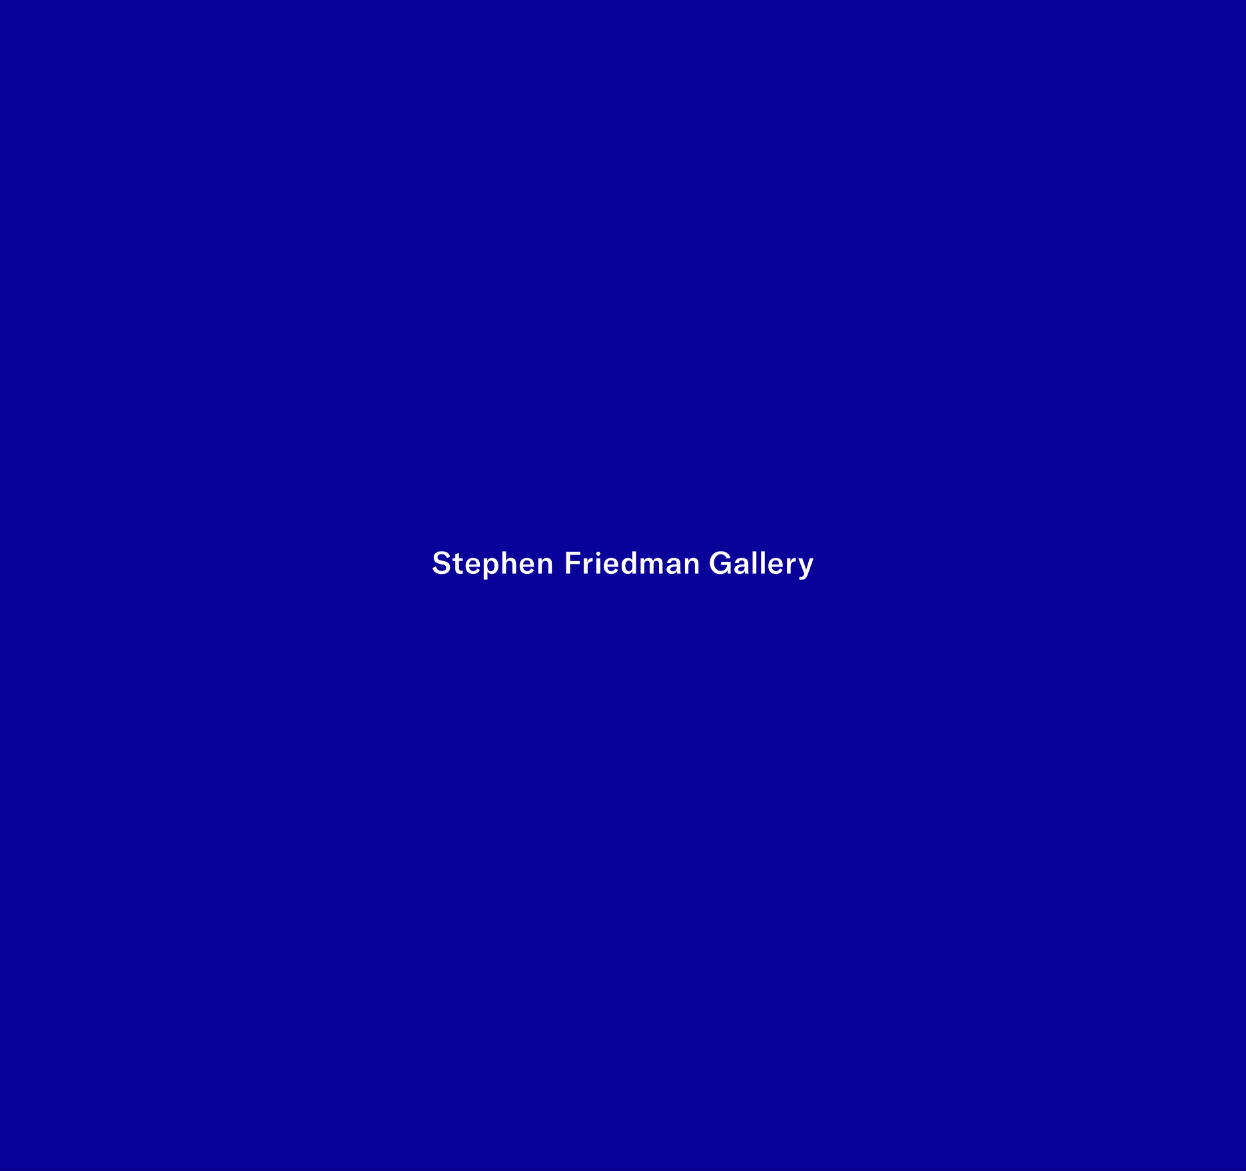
import math
import cairocffi as cairo

surface = cairo.ImageSurface(cairo.FORMAT_RGB24, 1246, 1171)
ctx = cairo.Context(surface)
options = cairo.FontOptions()
options.set_hint_metrics(cairo.HINT_METRICS_OFF)
options.set_hint_style(cairo.HINT_STYLE_NONE)
ctx.set_font_options(options)
ctx.set_miter_limit(4)


def rgb(r, g, b):
    ctx.set_source_rgb(r / 255, g / 255, b / 255)


def rrect(x, y, w, h, r):
    ctx.new_sub_path()
    for i, (u, v) in enumerate([(x + w - r, y + h - r), (x + r, y + h - r), (x + r, y + r), (x + w - r, y + r)]):
        ctx.arc(u, v, r, i * math.pi / 2, (i + 1) * math.pi / 2)
    ctx.close_path()


def soft_shadow(x, y, w, h, r, blur, alpha):
    ctx.push_group_with_content(cairo.CONTENT_ALPHA)
    ctx.set_operator(cairo.OPERATOR_SOURCE)
    for i in range(15, -16, -2):
        e = blur * i / 6
        if min(w, h) + 2 * e > 0:
            ctx.set_source_rgba(0, 0, 0, alpha * math.erfc((i - 1) / 8.5) / 2)
            rrect(x - e, y - e, w + 2 * e, h + 2 * e, max(0, min(r + e + blur * .6, min(w, h) / 2 + e)))
            ctx.fill()
    ctx.mask(ctx.pop_group())


def image(path, x, y, w, h):
    ctx.save()
    ctx.set_source_surface(cairo.ImageSurface.create_from_png(path), x, y)
    ctx.rectangle(x, y, w, h)
    ctx.fill()
    ctx.restore()


rgb(9, 0, 153)
ctx.paint()
image('image0.png', 432, 551, 382, 29)
rgb(0, 0, 0)
soft_shadow(0, 1171, 1246, 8, 0, 2.5, 0.23)
surface.write_to_png('render.png')
